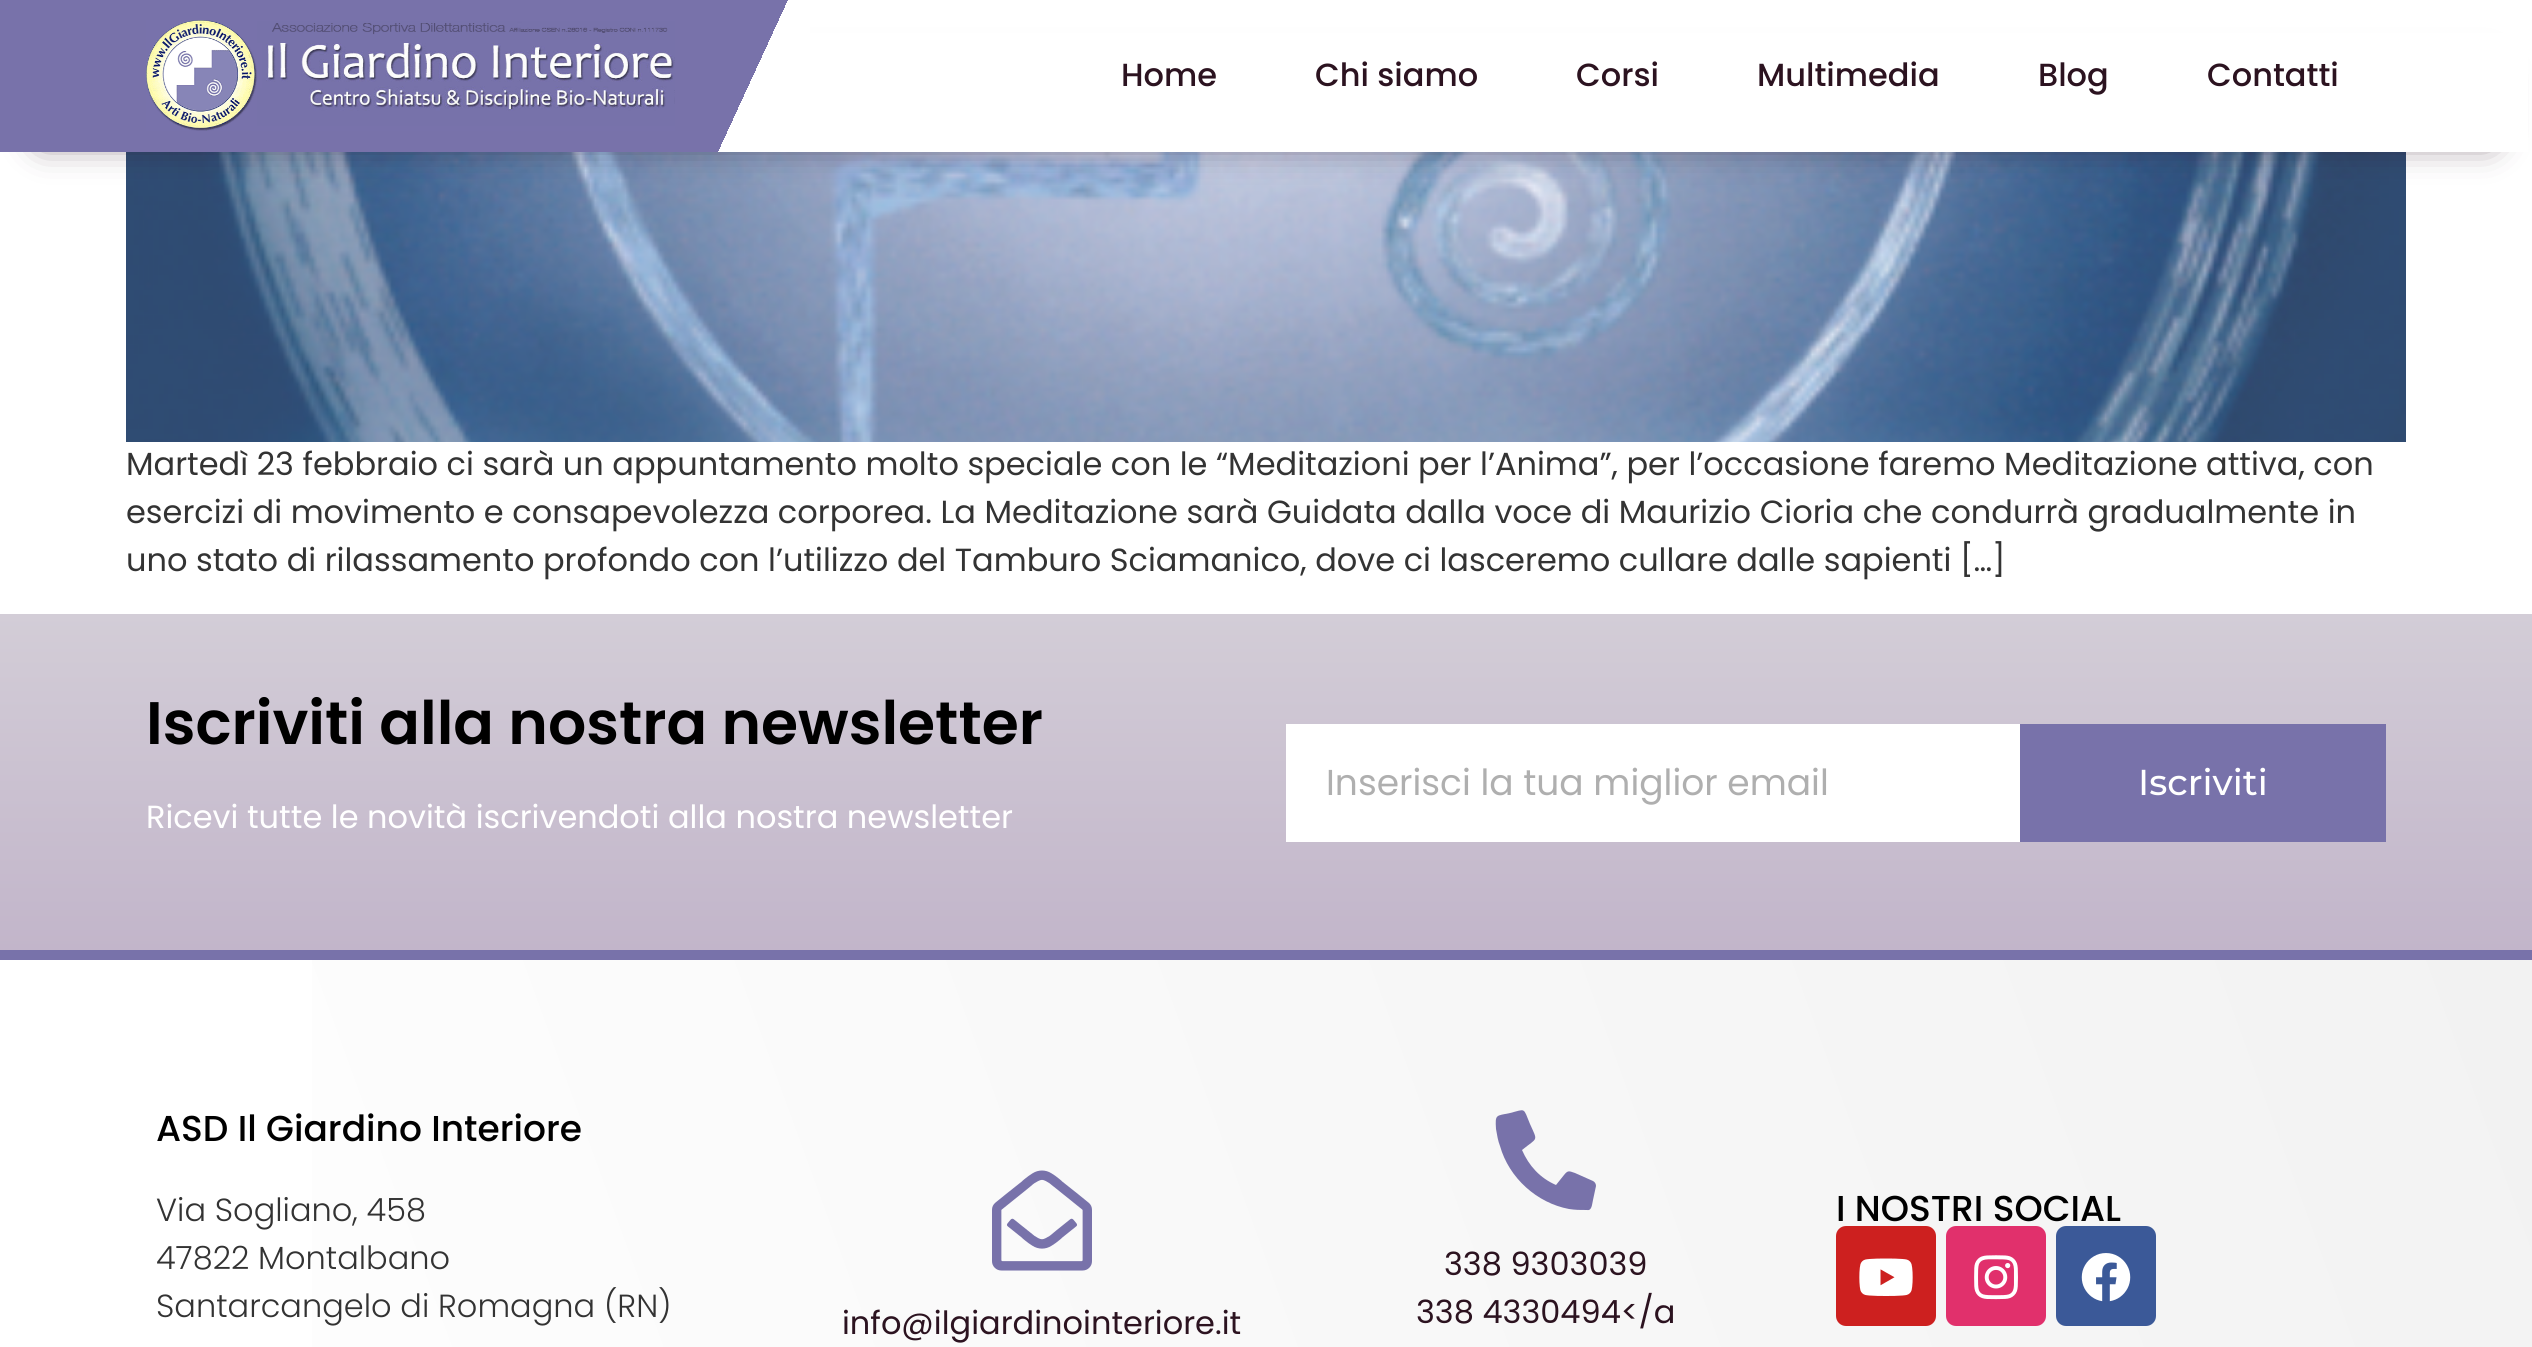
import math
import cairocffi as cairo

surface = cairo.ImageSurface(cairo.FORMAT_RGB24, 2532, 1347)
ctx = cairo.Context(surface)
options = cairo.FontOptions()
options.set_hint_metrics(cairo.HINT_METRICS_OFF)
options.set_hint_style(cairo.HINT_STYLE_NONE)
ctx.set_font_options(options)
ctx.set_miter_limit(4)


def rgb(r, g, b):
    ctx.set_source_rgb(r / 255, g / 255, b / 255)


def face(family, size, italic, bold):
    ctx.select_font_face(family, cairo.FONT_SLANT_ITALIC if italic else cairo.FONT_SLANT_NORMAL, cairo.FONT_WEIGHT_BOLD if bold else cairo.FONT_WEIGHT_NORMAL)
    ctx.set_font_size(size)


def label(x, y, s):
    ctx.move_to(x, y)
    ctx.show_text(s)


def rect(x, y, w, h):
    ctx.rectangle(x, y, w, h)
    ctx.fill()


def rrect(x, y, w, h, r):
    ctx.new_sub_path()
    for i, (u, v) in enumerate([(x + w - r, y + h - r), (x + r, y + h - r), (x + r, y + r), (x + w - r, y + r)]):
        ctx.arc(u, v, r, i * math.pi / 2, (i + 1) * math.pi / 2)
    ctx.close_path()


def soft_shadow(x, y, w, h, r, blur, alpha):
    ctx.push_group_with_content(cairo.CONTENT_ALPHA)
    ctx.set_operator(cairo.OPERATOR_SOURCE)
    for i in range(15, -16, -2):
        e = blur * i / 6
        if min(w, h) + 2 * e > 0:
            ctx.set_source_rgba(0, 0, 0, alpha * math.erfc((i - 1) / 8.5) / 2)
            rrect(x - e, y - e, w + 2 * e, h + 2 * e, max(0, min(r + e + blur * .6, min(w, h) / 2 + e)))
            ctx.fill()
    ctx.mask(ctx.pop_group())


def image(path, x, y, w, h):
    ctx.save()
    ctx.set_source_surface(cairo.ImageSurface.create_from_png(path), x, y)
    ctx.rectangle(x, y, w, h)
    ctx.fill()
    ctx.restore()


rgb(255, 255, 255)
ctx.paint()
image('image1.png', 126, 152, 2280, 290)
rgb(44, 19, 32)
soft_shadow(42, 72, 2448, 68, 0, 18, 0.69)
rgb(120, 114, 170)
rect(0, 0, 696, 152)
rgb(255, 255, 255)
rect(810, 33, 1718, 119)
image('image0.png', 146, 20, 529, 111)
gradient = cairo.LinearGradient(677, 41, 829, 111)
gradient.add_color_stop_rgba(0.5, 0.471, 0.447, 0.667, 1)
gradient.add_color_stop_rgba(0.5, 1, 1, 1, 1)
ctx.set_source(gradient)
rect(696, 0, 114, 152)
face('Poppins Medium', 32, 0, 0)
rgb(44, 19, 32)
label(1121, 86, 'Home')
label(1315, 86, 'Chi siamo')
label(1576, 86, 'Corsi')
label(1757, 86, 'Multimedia')
label(2038, 86, 'Blog')
label(2207, 86, 'Contatti')
face('Poppins', 32, 0, 0)
rgb(51, 51, 51)
label(126, 475, 'Martedì 23 febbraio ci sarà un appuntamento molto speciale con le “Meditazioni per l’Anima”, per l’occasione faremo Meditazione attiva, con')
label(126, 523, 'esercizi di movimento e consapevolezza corporea. La Meditazione sarà Guidata dalla voce di Maurizio Cioria che condurrà gradualmente in')
label(126, 571, 'uno stato di rilassamento profondo con l’utilizzo del Tamburo Sciamanico, dove ci lasceremo cullare dalle sapienti […]')
gradient = cairo.LinearGradient(1266, 614, 1266, 950)
gradient.add_color_stop_rgba(0, 0.827, 0.804, 0.843, 1)
gradient.add_color_stop_rgba(1, 0.761, 0.71, 0.792, 1)
ctx.set_source(gradient)
rect(0, 614, 2532, 336)
face('Poppins SemiBold', 60, 0, 0)
rgb(0, 0, 0)
label(146, 744, 'Iscriviti alla nostra newsletter')
face('Poppins', 32, 0, 0)
rgb(255, 255, 255)
label(146, 828, 'Ricevi tutte le novità iscrivendoti alla nostra newsletter')
rect(1286, 724, 734, 118)
face('Poppins', 36, 0, 0)
rgb(175, 175, 175)
label(1326, 795, 'Inserisci la tua miglior email')
rgb(120, 114, 170)
rect(2020, 724, 366, 118)
face('Montserrat Medium', 36, 0, 0)
rgb(255, 255, 255)
label(2138, 795, 'Iscriviti')
gradient = cairo.LinearGradient(2480, 816, 52, 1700)
gradient.add_color_stop_rgba(0, 0.949, 0.949, 0.949, 1)
gradient.add_color_stop_rgba(1, 1, 1, 1, 1)
ctx.set_source(gradient)
rect(312, 960, 2220, 387)
rgb(120, 114, 170)
rect(0, 950, 2532, 10)
face('Poppins Medium', 36, 0, 0)
rgb(0, 0, 0)
label(156, 1141, 'ASD Il Giardino Interiore')
face('Poppins Light', 32, 0, 0)
rgb(51, 51, 51)
label(156, 1221, 'Via Sogliano, 458')
label(156, 1269, '47822 Montalbano')
label(156, 1317, 'Santarcangelo di Romagna (RN)')
face('Poppins Medium', 36, 0, 0)
rgb(0, 0, 0)
label(1836, 1221, 'I NOSTRI SOCIAL')
rgb(205, 32, 31)
rrect(1836, 1226, 100, 100, 10)
ctx.fill()
image('image2.png', 1859, 1258, 54, 38)
rgb(225, 48, 108)
rrect(1946, 1226, 100, 100, 10)
ctx.fill()
image('image3.png', 1974, 1255, 44, 45)
rgb(59, 89, 152)
rrect(2056, 1226, 100, 100, 10)
ctx.fill()
image('image4.png', 2081, 1253, 50, 49)
image('image5.png', 992, 1170, 100, 101)
face('Poppins', 32, 0, 0)
rgb(44, 19, 32)
label(842, 1334, 'info@ilgiardinointeriore.it')
rgb(120, 114, 170)
ctx.new_path()
ctx.move_to(1593, 1181)
ctx.curve_to(1595, 1182, 1596, 1184, 1596, 1186)
ctx.line_to(1593, 1200)
ctx.curve_to(1592, 1204, 1592, 1211, 1587, 1210)
ctx.curve_to(1579, 1210, 1576, 1210, 1569, 1209)
ctx.curve_to(1537, 1203, 1509, 1178, 1500, 1146)
ctx.curve_to(1498, 1141, 1497, 1135, 1496, 1129)
ctx.curve_to(1495, 1114, 1496, 1116, 1510, 1113)
ctx.curve_to(1526, 1109, 1523, 1107, 1530, 1124)
ctx.curve_to(1538, 1142, 1538, 1137, 1522, 1150)
ctx.curve_to(1529, 1166, 1540, 1178, 1556, 1185)
ctx.line_to(1564, 1175)
ctx.curve_to(1568, 1170, 1569, 1171, 1575, 1173)
ctx.close_path()
ctx.fill()
rgb(44, 19, 32)
label(1444, 1275, '338 9303039')
label(1416, 1323, '338 4330494</a')
surface.write_to_png('render.png')
